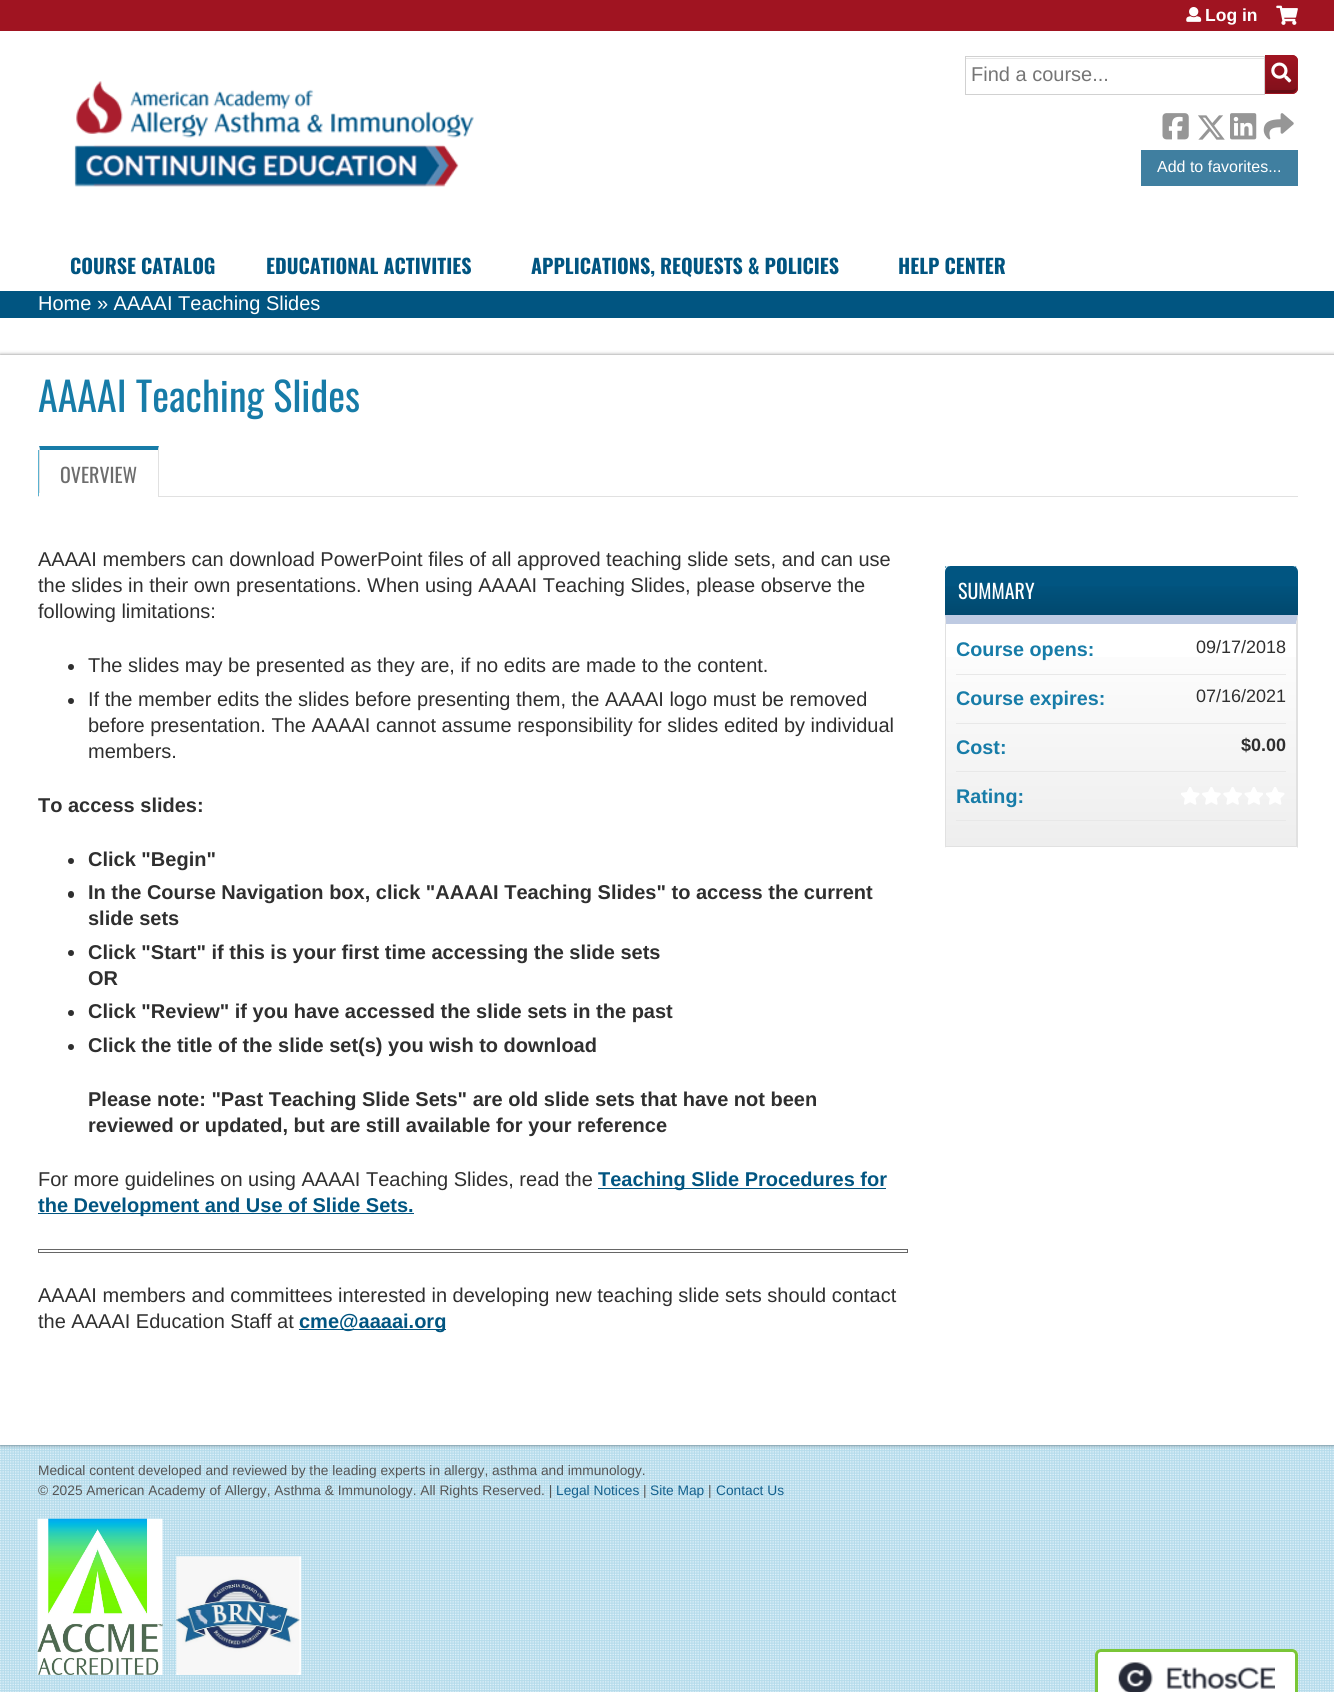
import math
import cairocffi as cairo

surface = cairo.ImageSurface(cairo.FORMAT_RGB24, 1334, 1692)
ctx = cairo.Context(surface)
options = cairo.FontOptions()
options.set_hint_metrics(cairo.HINT_METRICS_OFF)
options.set_hint_style(cairo.HINT_STYLE_NONE)
ctx.set_font_options(options)
ctx.set_miter_limit(4)


def rgb(r, g, b):
    ctx.set_source_rgb(r / 255, g / 255, b / 255)


def face(family, size, italic, bold):
    ctx.select_font_face(family, cairo.FONT_SLANT_ITALIC if italic else cairo.FONT_SLANT_NORMAL, cairo.FONT_WEIGHT_BOLD if bold else cairo.FONT_WEIGHT_NORMAL)
    ctx.set_font_size(size)


def label(x, y, s):
    ctx.move_to(x, y)
    ctx.show_text(s)


def rect(x, y, w, h):
    ctx.rectangle(x, y, w, h)
    ctx.fill()


def rrect(x, y, w, h, r):
    ctx.new_sub_path()
    for i, (u, v) in enumerate([(x + w - r, y + h - r), (x + r, y + h - r), (x + r, y + r), (x + w - r, y + r)]):
        ctx.arc(u, v, r, i * math.pi / 2, (i + 1) * math.pi / 2)
    ctx.close_path()


def soft_shadow(x, y, w, h, r, blur, alpha):
    ctx.push_group_with_content(cairo.CONTENT_ALPHA)
    ctx.set_operator(cairo.OPERATOR_SOURCE)
    for i in range(15, -16, -2):
        e = blur * i / 6
        if min(w, h) + 2 * e > 0:
            ctx.set_source_rgba(0, 0, 0, alpha * math.erfc((i - 1) / 8.5) / 2)
            rrect(x - e, y - e, w + 2 * e, h + 2 * e, max(0, min(r + e + blur * .6, min(w, h) / 2 + e)))
            ctx.fill()
    ctx.mask(ctx.pop_group())


def image(path, x, y, w, h):
    ctx.save()
    ctx.set_source_surface(cairo.ImageSurface.create_from_png(path), x, y)
    ctx.rectangle(x, y, w, h)
    ctx.fill()
    ctx.restore()


rgb(255, 255, 255)
ctx.paint()
image('image0.png', 0, 1445, 1334, 247)
rgb(160, 20, 33)
rect(0, 0, 1334, 31)
image('image1.png', 74, 81, 400, 106)
image('image2.png', 1186, 7, 16, 15)
face('Liberation Sans', 17.5, 0, 1)
rgb(255, 255, 255)
label(1205, 21, 'Log in')
image('image3.png', 1276, 5, 22, 20)
rgb(160, 20, 33)
ctx.new_path()
ctx.move_to(1265, 55)
ctx.line_to(1292, 55)
ctx.curve_to(1295.5, 55, 1298, 57.5, 1298, 61)
ctx.line_to(1298, 88)
ctx.curve_to(1298, 91.5, 1295.5, 94, 1292, 94)
ctx.line_to(1265, 94)
ctx.close_path()
ctx.fill()
ctx.save()
ctx.new_path()
ctx.move_to(1265, 55)
ctx.line_to(1292, 55)
ctx.curve_to(1295.5, 55, 1298, 57.5, 1298, 61)
ctx.line_to(1298, 88)
ctx.curve_to(1298, 91.5, 1295.5, 94, 1292, 94)
ctx.line_to(1265, 94)
ctx.close_path()
ctx.clip()
gradient = cairo.LinearGradient(1281, 93, 1281, 56)
gradient.add_color_stop_rgba(0, 0, 0, 0, 0.2)
gradient.add_color_stop_rgba(1, 0, 0, 0, 0)
ctx.set_source(gradient)
rect(1266, 60, 32, 33)
ctx.restore()
ctx.set_source_rgba(0, 0, 0, 0.2)
ctx.new_path()
ctx.move_to(1266, 90)
ctx.line_to(1266, 93)
ctx.line_to(1291, 93)
ctx.curve_to(1293.5, 93, 1296, 91, 1296, 88)
ctx.curve_to(1294.5, 89.5, 1293, 90, 1291, 90)
ctx.close_path()
ctx.fill()
ctx.new_path()
ctx.move_to(1265.5, 55.5)
ctx.line_to(1292, 55.5)
ctx.curve_to(1295, 55.5, 1297.5, 58, 1297.5, 61)
ctx.line_to(1297.5, 88)
ctx.curve_to(1297.5, 91, 1295, 93.5, 1292, 93.5)
ctx.line_to(1265.5, 93.5)
ctx.close_path()
rgb(160, 20, 33)
ctx.set_line_width(1)
ctx.stroke()
rgb(230, 230, 230)
rect(966, 58, 298, 1)
ctx.rectangle(965.5, 56.5, 299, 38)
rgb(209, 209, 209)
ctx.stroke()
face('Liberation Sans', 20, 0, 0)
rgb(117, 117, 117)
label(971, 81, 'Find a course...')
image('image4.png', 1271, 62, 21, 21)
image('image5.png', 1162, 113, 27, 27)
image('image6.png', 1198, 115, 27, 25)
image('image7.png', 1230, 113, 27, 27)
image('image8.png', 1263, 113, 31, 27)
rgb(64, 127, 160)
rect(1141, 150, 157, 36)
face('Liberation Sans', 16, 0, 0)
rgb(255, 255, 255)
label(1157, 172, 'Add to favorites...')
face('Oswald', 20, 0, 1)
rgb(1, 85, 129)
label(70, 274, 'COURSE CATALOG')
label(266, 274, 'EDUCATIONAL ACTIVITIES')
label(531, 274, 'APPLICATIONS, REQUESTS & POLICIES')
label(898, 274, 'HELP CENTER')
rect(0, 291, 1334, 27)
face('Liberation Sans', 20, 0, 0)
rgb(255, 255, 255)
label(38, 310, 'Home » AAAAI Teaching Slides')
rgb(0, 0, 0)
soft_shadow(0, 355, 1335, 1090, 0, 2, 0.5)
rgb(255, 255, 255)
rect(0, 355, 1334, 1090)
face('Oswald', 40, 0, 0)
rgb(23, 124, 168)
label(38, 412, 'AAAAI Teaching Slides')
rgb(225, 225, 225)
rect(38, 496, 1260, 1)
rgb(90, 177, 208)
rect(38, 450, 1, 46)
rgb(23, 124, 168)
ctx.new_path()
ctx.move_to(39, 446)
ctx.line_to(159, 446)
ctx.line_to(158, 450)
ctx.line_to(40, 450)
ctx.close_path()
ctx.fill()
rgb(225, 225, 225)
ctx.new_path()
ctx.move_to(159, 446)
ctx.line_to(159, 496)
ctx.line_to(158, 496)
ctx.line_to(158, 450)
ctx.close_path()
ctx.fill()
ctx.new_path()
ctx.move_to(39, 496)
ctx.line_to(39, 446)
ctx.line_to(40, 450)
ctx.line_to(40, 496)
ctx.close_path()
ctx.fill()
face('Oswald', 20, 0, 0)
rgb(109, 109, 109)
label(60, 483, 'OVERVIEW')
rgb(255, 255, 255)
rect(39, 493, 119, 4)
face('Liberation Sans', 20, 0, 0)
rgb(47, 47, 47)
label(38, 566, 'AAAAI members can download PowerPoint files of all approved teaching slide sets, and can use')
label(38, 592, 'the slides in their own presentations. When using AAAAI Teaching Slides, please observe the')
label(38, 618, 'following limitations:')
ctx.new_path()
ctx.arc(71, 667, 3, 0, 2 * math.pi)
ctx.fill()
label(88, 672, 'The slides may be presented as they are, if no edits are made to the content.')
ctx.new_path()
ctx.arc(71, 701, 3, 0, 2 * math.pi)
ctx.fill()
label(88, 706, 'If the member edits the slides before presenting them, the AAAAI logo must be removed')
label(88, 732, 'before presentation. The AAAAI cannot assume responsibility for slides edited by individual')
label(88, 758, 'members.')
face('Liberation Sans', 20, 0, 1)
label(38, 812, 'To access slides:')
ctx.new_path()
ctx.arc(71, 861, 3, 0, 2 * math.pi)
ctx.fill()
label(88, 866, 'Click "Begin"')
rrect(68, 891, 6, 7, 3)
ctx.fill()
label(88, 899, 'In the Course Navigation box, click "AAAAI Teaching Slides" to access the current')
label(88, 925, 'slide sets')
ctx.new_path()
ctx.arc(71, 953, 3, 0, 2 * math.pi)
ctx.fill()
label(88, 959, 'Click "Start" if this is your first time accessing the slide sets')
label(88, 985, 'OR')
ctx.new_path()
ctx.arc(71, 1013, 3, 0, 2 * math.pi)
ctx.fill()
label(88, 1018, 'Click "Review" if you have accessed the slide sets in the past')
ctx.new_path()
ctx.arc(71, 1047, 3, 0, 2 * math.pi)
ctx.fill()
label(88, 1052, 'Click the title of the slide set(s) you wish to download')
label(88, 1106, 'Please note: "Past Teaching Slide Sets" are old slide sets that have not been')
label(88, 1132, 'reviewed or updated, but are still available for your reference')
face('Liberation Sans', 20, 0, 0)
label(38, 1186, 'For more guidelines on using AAAAI Teaching Slides, read the')
rgb(1, 85, 129)
rect(598, 1188, 288, 1)
face('Liberation Sans', 20, 0, 1)
label(598, 1186, 'Teaching Slide Procedures for')
rect(38, 1213, 376, 1)
label(38, 1212, 'the Development and Use of Slide Sets.')
ctx.rectangle(38.5, 1249.5, 869, 3)
rgb(102, 102, 102)
ctx.stroke()
face('Liberation Sans', 20, 0, 0)
rgb(47, 47, 47)
label(38, 1302, 'AAAAI members and committees interested in developing new teaching slide sets should contact')
label(38, 1328, 'the AAAAI Education Staff at')
rgb(1, 85, 129)
rect(299, 1329, 147, 1)
face('Liberation Sans', 20, 0, 1)
label(299, 1328, 'cme@aaaai.org')
ctx.new_path()
ctx.move_to(945, 567)
ctx.line_to(1297.5, 567)
rgb(23, 124, 168)
ctx.set_line_width(1.2)
ctx.set_dash([1.25, 1.25])
ctx.stroke()
rgb(1, 85, 129)
ctx.new_path()
ctx.move_to(951, 566)
ctx.line_to(1292, 566)
ctx.curve_to(1295.5, 566, 1298, 568.5, 1298, 572)
ctx.line_to(1298, 615)
ctx.line_to(945, 615)
ctx.line_to(945, 572)
ctx.curve_to(945, 568.5, 947.5, 566, 951, 566)
ctx.close_path()
ctx.fill()
gradient = cairo.LinearGradient(1121, 615, 1121, 566)
gradient.add_color_stop_rgba(0, 0, 0, 0, 0.15)
gradient.add_color_stop_rgba(0.7, 0, 0, 0, 0)
ctx.set_source(gradient)
rect(945, 586, 353, 29)
face('Oswald', 20, 0, 0)
rgb(255, 255, 255)
label(958, 599, 'SUMMARY')
gradient = cairo.LinearGradient(1121, 846, 1121, 624)
gradient.add_color_stop_rgba(0, 0.933, 0.933, 0.933, 1)
gradient.add_color_stop_rgba(1, 1, 1, 1, 1)
ctx.set_source(gradient)
rect(946, 657, 350, 189)
rgb(190, 202, 226)
ctx.new_path()
ctx.move_to(945, 615)
ctx.line_to(1298, 615)
ctx.line_to(1296, 624)
ctx.line_to(946, 624)
ctx.close_path()
ctx.fill()
rgb(225, 225, 225)
ctx.new_path()
ctx.move_to(1298, 615)
ctx.line_to(1298, 848)
ctx.line_to(1296, 846)
ctx.line_to(1296, 624)
ctx.close_path()
ctx.fill()
rect(945, 846, 353, 1)
ctx.new_path()
ctx.move_to(945, 848)
ctx.line_to(945, 615)
ctx.line_to(946, 624)
ctx.line_to(946, 846)
ctx.close_path()
ctx.fill()
rgb(232, 232, 232)
rect(956, 674, 330, 1)
face('Liberation Sans', 19.75, 0, 1)
rgb(23, 124, 168)
label(956, 656, 'Course opens:')
face('Liberation Sans', 18, 0, 0)
rgb(47, 47, 47)
label(1196, 653, '09/17/2018')
rgb(232, 232, 232)
rect(956, 723, 330, 1)
face('Liberation Sans', 19.75, 0, 1)
rgb(23, 124, 168)
label(956, 705, 'Course expires:')
face('Liberation Sans', 18, 0, 0)
rgb(47, 47, 47)
label(1196, 702, '07/16/2021')
rgb(232, 232, 232)
rect(956, 771, 330, 1)
face('Liberation Sans', 19.75, 0, 1)
rgb(23, 124, 168)
label(956, 754, 'Cost:')
face('Liberation Sans', 18, 0, 1)
rgb(47, 47, 47)
label(1241, 751, '$0.00')
rgb(232, 232, 232)
rect(956, 820, 330, 1)
face('Liberation Sans', 19.75, 0, 1)
rgb(23, 124, 168)
label(956, 803, 'Rating:')
image('image9.png', 1181, 787, 19, 18)
image('image10.png', 1202, 787, 19, 18)
image('image11.png', 1223, 787, 19, 18)
image('image12.png', 1244, 787, 19, 18)
image('image9.png', 1266, 787, 19, 18)
face('Liberation Sans', 13.75, 0, 0)
rgb(85, 85, 85)
label(38, 1475, 'Medical content developed and reviewed by the leading experts in allergy, asthma and immunology.')
label(38, 1495, '© 2025 American Academy of Allergy, Asthma & Immunology. All Rights Reserved. |')
rgb(19, 96, 141)
label(556, 1495, 'Legal Notices')
rgb(85, 85, 85)
label(643, 1495, '|')
rgb(19, 96, 141)
label(650, 1495, 'Site Map')
rgb(85, 85, 85)
label(708, 1495, '|')
rgb(19, 96, 141)
label(716, 1495, 'Contact Us')
image('image13.png', 37, 1518, 126, 157)
image('image14.png', 176, 1556, 126, 119)
rgb(255, 255, 255)
rrect(1095, 1649, 203, 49, 6)
ctx.fill()
image('image15.png', 1118, 1662, 157, 30)
rrect(1096.5, 1650.5, 200, 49, 4.5)
rgb(122, 198, 55)
ctx.set_line_width(3)
ctx.set_dash([])
ctx.stroke()
surface.write_to_png('render.png')
